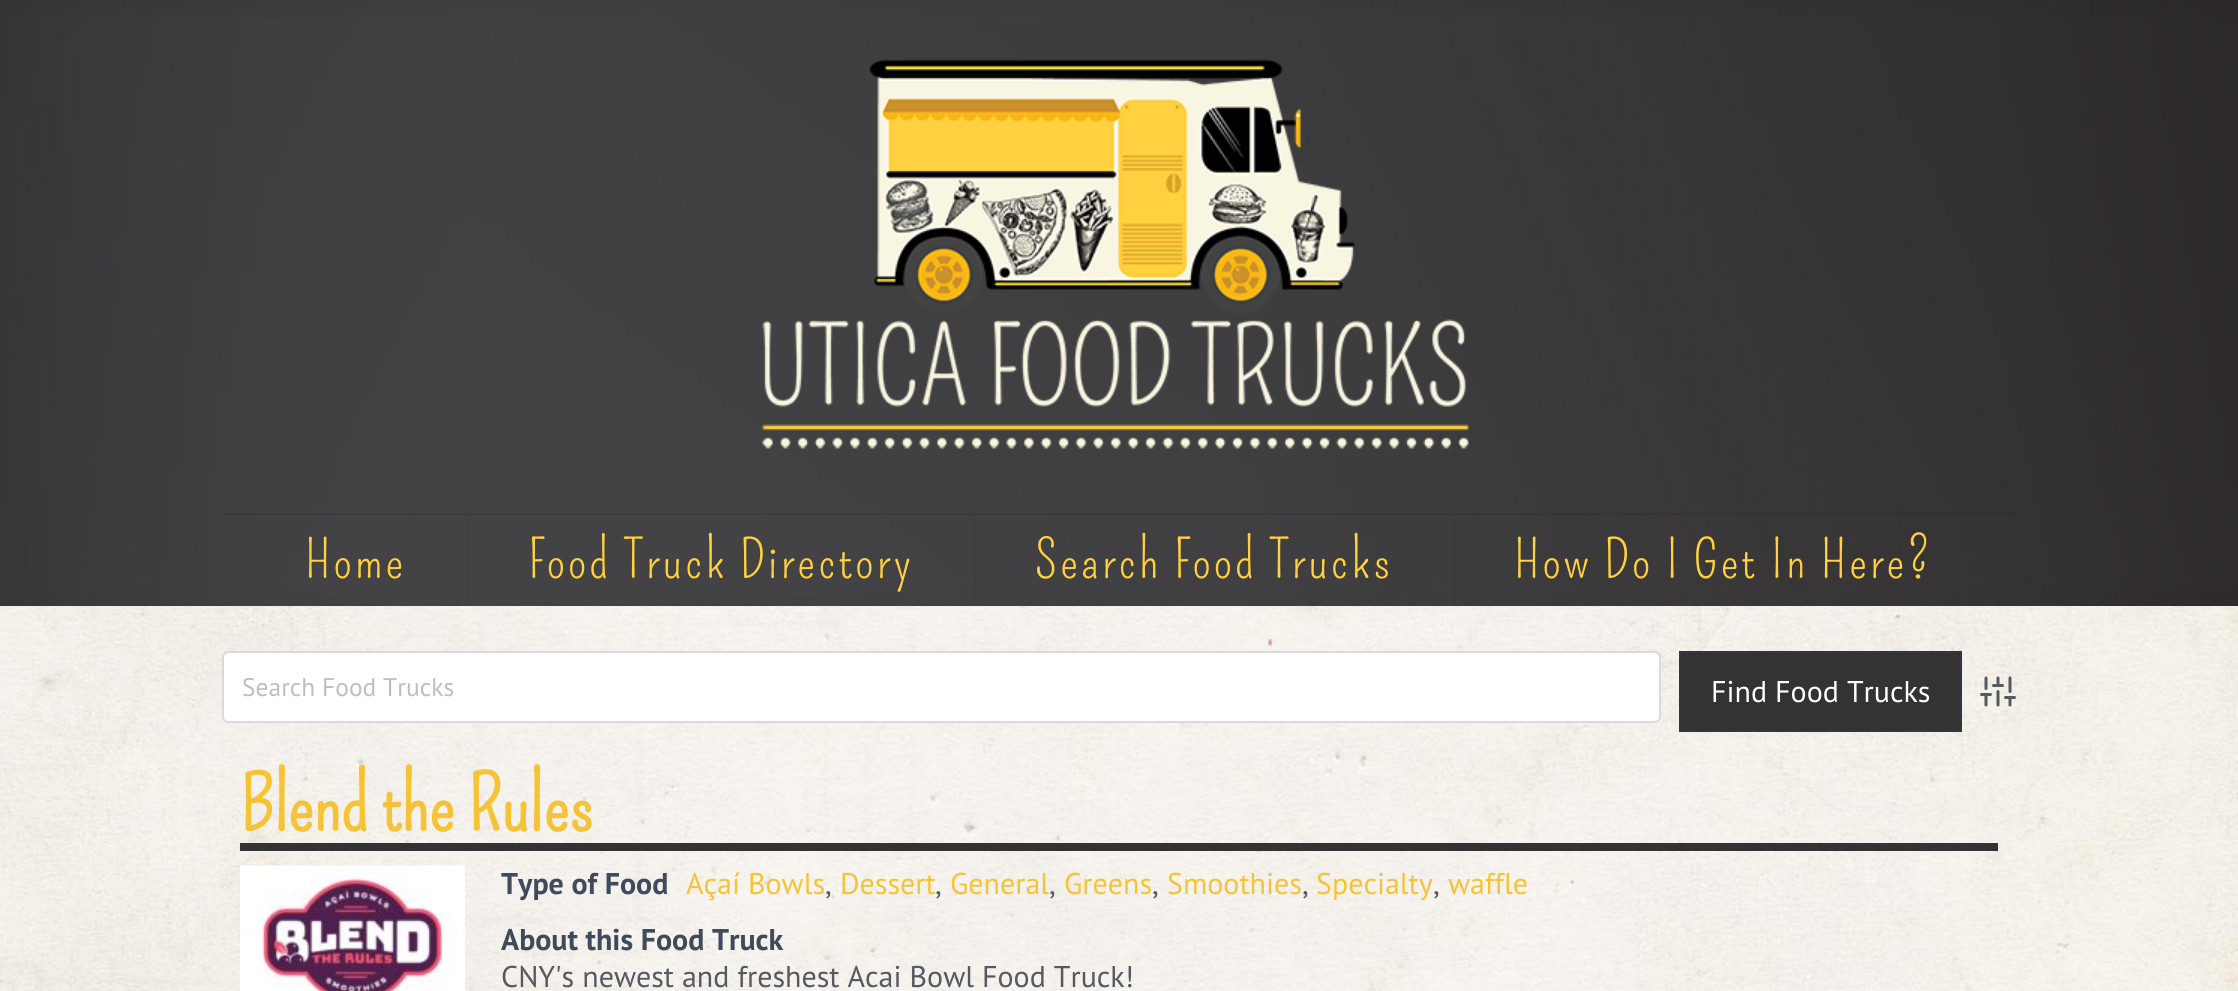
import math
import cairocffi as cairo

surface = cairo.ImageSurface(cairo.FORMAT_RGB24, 2238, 991)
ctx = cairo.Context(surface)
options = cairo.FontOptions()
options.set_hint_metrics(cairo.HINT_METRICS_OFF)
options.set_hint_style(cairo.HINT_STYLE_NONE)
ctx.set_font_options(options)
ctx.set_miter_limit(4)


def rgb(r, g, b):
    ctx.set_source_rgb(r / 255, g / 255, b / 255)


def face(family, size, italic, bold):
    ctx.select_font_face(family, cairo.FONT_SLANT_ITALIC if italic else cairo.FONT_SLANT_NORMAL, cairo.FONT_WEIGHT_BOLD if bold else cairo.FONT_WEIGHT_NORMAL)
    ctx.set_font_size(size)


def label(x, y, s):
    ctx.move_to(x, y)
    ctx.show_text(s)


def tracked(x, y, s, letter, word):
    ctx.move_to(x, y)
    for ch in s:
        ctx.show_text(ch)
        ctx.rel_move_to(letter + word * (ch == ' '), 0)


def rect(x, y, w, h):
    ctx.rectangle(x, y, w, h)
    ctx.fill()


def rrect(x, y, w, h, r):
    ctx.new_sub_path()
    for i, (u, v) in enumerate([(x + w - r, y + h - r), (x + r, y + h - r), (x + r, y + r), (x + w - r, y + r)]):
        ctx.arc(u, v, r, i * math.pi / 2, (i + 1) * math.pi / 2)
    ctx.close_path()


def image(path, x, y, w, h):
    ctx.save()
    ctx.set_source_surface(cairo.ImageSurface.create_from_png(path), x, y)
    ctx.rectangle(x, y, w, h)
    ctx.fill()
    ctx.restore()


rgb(255, 255, 255)
ctx.paint()
image('image0.png', 0, 606, 2238, 385)
image('image1.png', 0, 0, 2238, 606)
ctx.set_source_rgba(0, 0, 0, 0.08)
rect(222, 513, 1794, 2)
image('image2.png', 761, 59, 708, 390)
rgb(64, 64, 66)
rect(467, 515, 2, 90)
face('Pompiere', 52.5, 0, 0)
rgb(255, 208, 63)
tracked(305, 578, 'Home', 3, 0)
rgb(62, 62, 64)
rect(974, 515, 2, 90)
rgb(255, 208, 63)
tracked(528, 578, 'Food Truck Directory', 3, 0)
rgb(58, 58, 59)
rect(1454, 515, 2, 90)
rgb(255, 208, 63)
tracked(1035, 578, 'Search Food Trucks', 3, 0)
tracked(1514, 578, 'How Do I Get In Here?', 3, 0)
rgb(255, 255, 255)
rrect(222, 651, 1439, 72, 6)
ctx.fill()
rrect(223, 652, 1437, 70, 5)
ctx.set_source_rgba(0.247, 0.294, 0.357, 0.2)
ctx.stroke()
face('PT Sans', 25.5, 0, 0)
rgb(190, 190, 190)
label(242, 696, 'Search Food Trucks')
rgb(51, 51, 51)
ctx.rectangle(1680, 652, 281, 79)
ctx.fill_preserve()
rgb(50, 55, 60)
ctx.stroke()
face('PT Sans', 30, 0, 0)
rgb(255, 255, 255)
label(1711, 702, 'Find Food Trucks')
ctx.new_path()
ctx.move_to(1986, 705)
ctx.line_to(1986, 694.5)
ctx.move_to(1986, 688.5)
ctx.line_to(1986, 678)
ctx.move_to(1998, 705)
ctx.line_to(1998, 691.5)
ctx.move_to(1998, 685.5)
ctx.line_to(1998, 678)
ctx.move_to(2010, 705)
ctx.line_to(2010, 697.5)
ctx.move_to(2010, 691.5)
ctx.line_to(2010, 678)
ctx.move_to(1981.5, 694.5)
ctx.line_to(1990.5, 694.5)
ctx.move_to(1993.5, 685.5)
ctx.line_to(2002.5, 685.5)
ctx.move_to(2005.5, 697.5)
ctx.line_to(2014.5, 697.5)
rgb(85, 90, 96)
ctx.set_line_width(3)
ctx.set_line_cap(cairo.LINE_CAP_ROUND)
ctx.set_line_join(cairo.LINE_JOIN_ROUND)
ctx.stroke()
rgb(51, 51, 51)
rect(240, 843, 1758, 8)
face('Pompiere', 75, 0, 1)
rgb(246, 195, 55)
label(240, 831, 'Blend the Rules')
rgb(243, 243, 243)
rect(240, 851, 353, 2)
image('image3.png', 240, 865, 225, 126)
face('PT Sans', 30, 0, 1)
rgb(63, 75, 91)
label(501, 894, 'Type of Food')
face('PT Sans', 30, 0, 0)
rgb(246, 195, 55)
label(686, 894, 'Açaí Bowls')
rgb(85, 90, 96)
label(825, 894, ',')
rgb(243, 243, 243)
rect(686, 903, 139, 2)
rgb(246, 195, 55)
label(840, 894, 'Dessert')
rgb(85, 90, 96)
label(935, 894, ',')
rgb(243, 243, 243)
rect(840, 903, 96, 2)
rgb(246, 195, 55)
label(950, 894, 'General')
rgb(85, 90, 96)
label(1049, 894, ',')
rgb(243, 243, 243)
rect(950, 903, 99, 2)
rgb(246, 195, 55)
label(1064, 894, 'Greens')
rgb(85, 90, 96)
label(1152, 894, ',')
rgb(243, 243, 243)
rect(1064, 903, 88, 2)
rgb(246, 195, 55)
label(1167, 894, 'Smoothies')
rgb(85, 90, 96)
label(1302, 894, ',')
rgb(243, 243, 243)
rect(1167, 903, 135, 2)
rgb(246, 195, 55)
label(1316, 894, 'Specialty')
rgb(85, 90, 96)
label(1433, 894, ',')
rgb(243, 243, 243)
rect(1317, 903, 116, 2)
rect(1448, 903, 81, 2)
rgb(246, 195, 55)
label(1448, 894, 'waffle')
face('PT Sans', 30, 0, 1)
rgb(63, 75, 91)
label(501, 950, 'About this Food Truck')
face('PT Sans', 30, 0, 0)
rgb(85, 90, 96)
label(501, 987, 'CNY\'s newest and freshest Acai Bowl Food Truck!')
surface.write_to_png('render.png')
